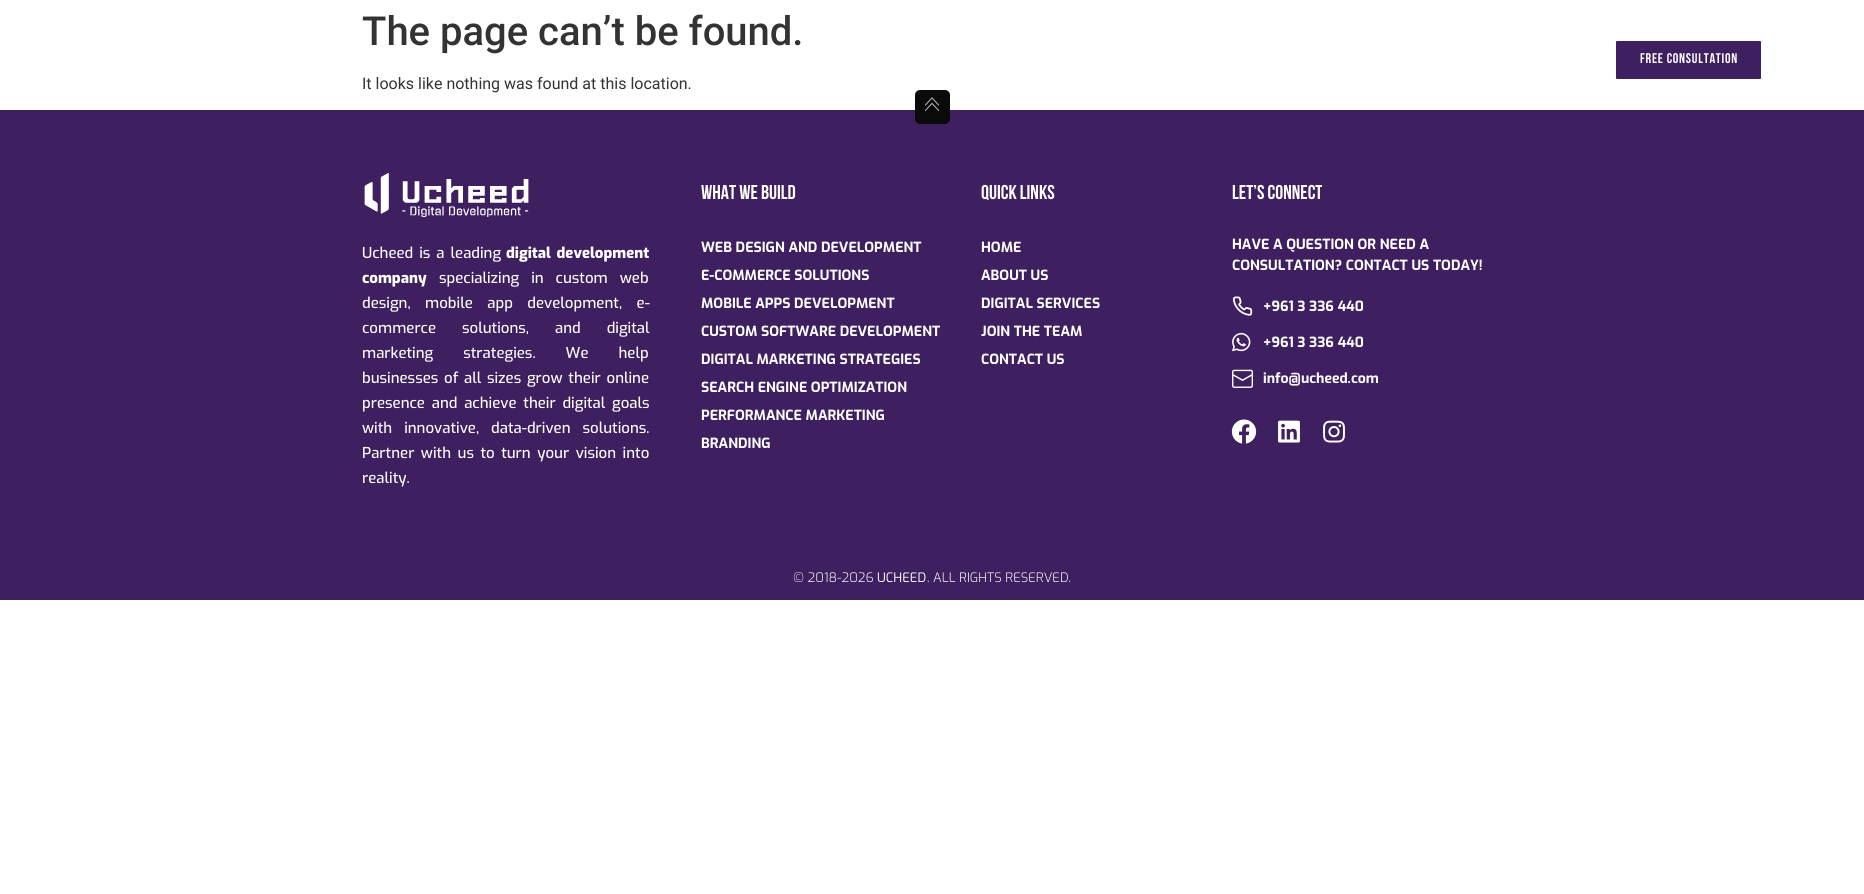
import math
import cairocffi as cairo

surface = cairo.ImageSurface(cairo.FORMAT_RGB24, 1864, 894)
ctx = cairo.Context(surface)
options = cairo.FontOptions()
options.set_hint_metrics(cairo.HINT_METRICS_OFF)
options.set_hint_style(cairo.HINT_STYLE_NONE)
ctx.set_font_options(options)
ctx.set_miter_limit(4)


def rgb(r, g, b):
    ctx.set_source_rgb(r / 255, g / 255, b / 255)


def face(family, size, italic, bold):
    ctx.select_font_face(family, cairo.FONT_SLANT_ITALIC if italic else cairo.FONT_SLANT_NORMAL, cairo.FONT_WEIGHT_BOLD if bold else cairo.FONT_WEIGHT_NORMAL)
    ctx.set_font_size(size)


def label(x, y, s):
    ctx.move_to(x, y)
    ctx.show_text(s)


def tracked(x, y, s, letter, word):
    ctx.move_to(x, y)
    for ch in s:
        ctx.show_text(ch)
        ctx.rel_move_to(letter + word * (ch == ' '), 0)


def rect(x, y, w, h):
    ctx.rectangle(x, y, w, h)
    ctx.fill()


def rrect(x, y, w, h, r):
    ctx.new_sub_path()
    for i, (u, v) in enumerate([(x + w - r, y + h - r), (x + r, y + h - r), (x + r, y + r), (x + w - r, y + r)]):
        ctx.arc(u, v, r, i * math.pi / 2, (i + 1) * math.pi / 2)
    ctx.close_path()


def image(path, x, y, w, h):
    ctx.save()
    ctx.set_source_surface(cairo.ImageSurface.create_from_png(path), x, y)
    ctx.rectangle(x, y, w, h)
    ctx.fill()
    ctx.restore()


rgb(255, 255, 255)
ctx.paint()
face('Roboto Medium', 40, 0, 0)
rgb(51, 51, 51)
label(362, 45, 'The page can’t be found.')
face('Roboto', 16, 0, 0)
label(362, 89, 'It looks like nothing was found at this location.')
rgb(62, 31, 96)
rrect(1615.5, 40.5, 146, 39, 1.5)
ctx.fill_preserve()
rgb(255, 255, 255)
ctx.set_line_width(1)
ctx.stroke()
face('Bebas Neue', 14, 0, 1)
tracked(1640, 63, 'FREE CONSULTATION', 0.75, 0)
rgb(62, 31, 96)
rect(0, 110, 1864, 490)
rgb(10, 10, 10)
rrect(915, 90, 35, 34, 5)
ctx.fill()
image('image0.png', 924, 97, 16, 14)
image('image1.png', 364, 173, 165, 44)
face('Exo Medium', 15, 0, 0)
rgb(255, 255, 255)
tracked(362, 258, 'Ucheed is a leading', 0, 2)
face('Exo ExtraBold', 15, 0, 0)
tracked(506, 258, 'digital development', 0, 2)
label(362, 283, 'company')
face('Exo Medium', 15, 0, 0)
tracked(439, 283, 'specializing in custom web', 0, 8)
tracked(362, 308, 'design, mobile app development, e-', 0, 10.5)
tracked(362, 333, 'commerce solutions, and digital', 0, 22)
tracked(362, 358, 'marketing strategies. We help', 0, 26)
tracked(362, 383, 'businesses of all sizes grow their online', 0, 1.75)
tracked(362, 408, 'presence and achieve their digital goals', 0, 2.75)
tracked(362, 433, 'with innovative, data-driven solutions.', 0, 8)
tracked(362, 458, 'Partner with us to turn your vision into', 0, 2.5)
label(362, 483, 'reality.')
face('Bebas Neue', 20, 0, 1)
label(701, 199, 'WHAT WE BUILD')
face('Exo', 14, 0, 1)
label(701, 252, 'WEB DESIGN AND DEVELOPMENT')
label(701, 280, 'E-COMMERCE SOLUTIONS')
label(701, 308, 'MOBILE APPS DEVELOPMENT')
label(701, 336, 'CUSTOM SOFTWARE DEVELOPMENT')
label(701, 364, 'DIGITAL MARKETING STRATEGIES')
label(701, 392, 'SEARCH ENGINE OPTIMIZATION')
label(701, 420, 'PERFORMANCE MARKETING')
label(701, 448, 'BRANDING')
face('Bebas Neue', 20, 0, 1)
label(981, 199, 'QUICK LINKS')
face('Exo', 14, 0, 1)
label(981, 252, 'HOME')
label(981, 280, 'ABOUT US')
label(981, 308, 'DIGITAL SERVICES')
label(981, 336, 'JOIN THE TEAM')
label(981, 364, 'CONTACT US')
face('Bebas Neue', 20, 0, 1)
label(1232, 199, 'LET’S CONNECT')
face('Exo', 14, 0, 1)
label(1232, 249, 'HAVE A QUESTION OR NEED A')
label(1232, 270, 'CONSULTATION? CONTACT US TODAY!')
image('image2.png', 1232, 296, 21, 20)
label(1263, 311, '+961 3 336 440')
image('image3.png', 1232, 332, 19, 20)
label(1263, 347, '+961 3 336 440')
image('image4.png', 1232, 369, 21, 19)
label(1263, 383, 'info@ucheed.com')
image('image5.png', 1231, 419, 26, 25)
image('image6.png', 1278, 420, 22, 23)
image('image7.png', 1323, 420, 22, 23)
face('Exo Light', 13, 0, 0)
label(793, 582, '© 2018-2026')
face('Exo', 13, 0, 0)
label(877, 582, 'UCHEED')
face('Exo Light', 13, 0, 0)
label(927, 582, '. ALL RIGHTS RESERVED.')
surface.write_to_png('render.png')
